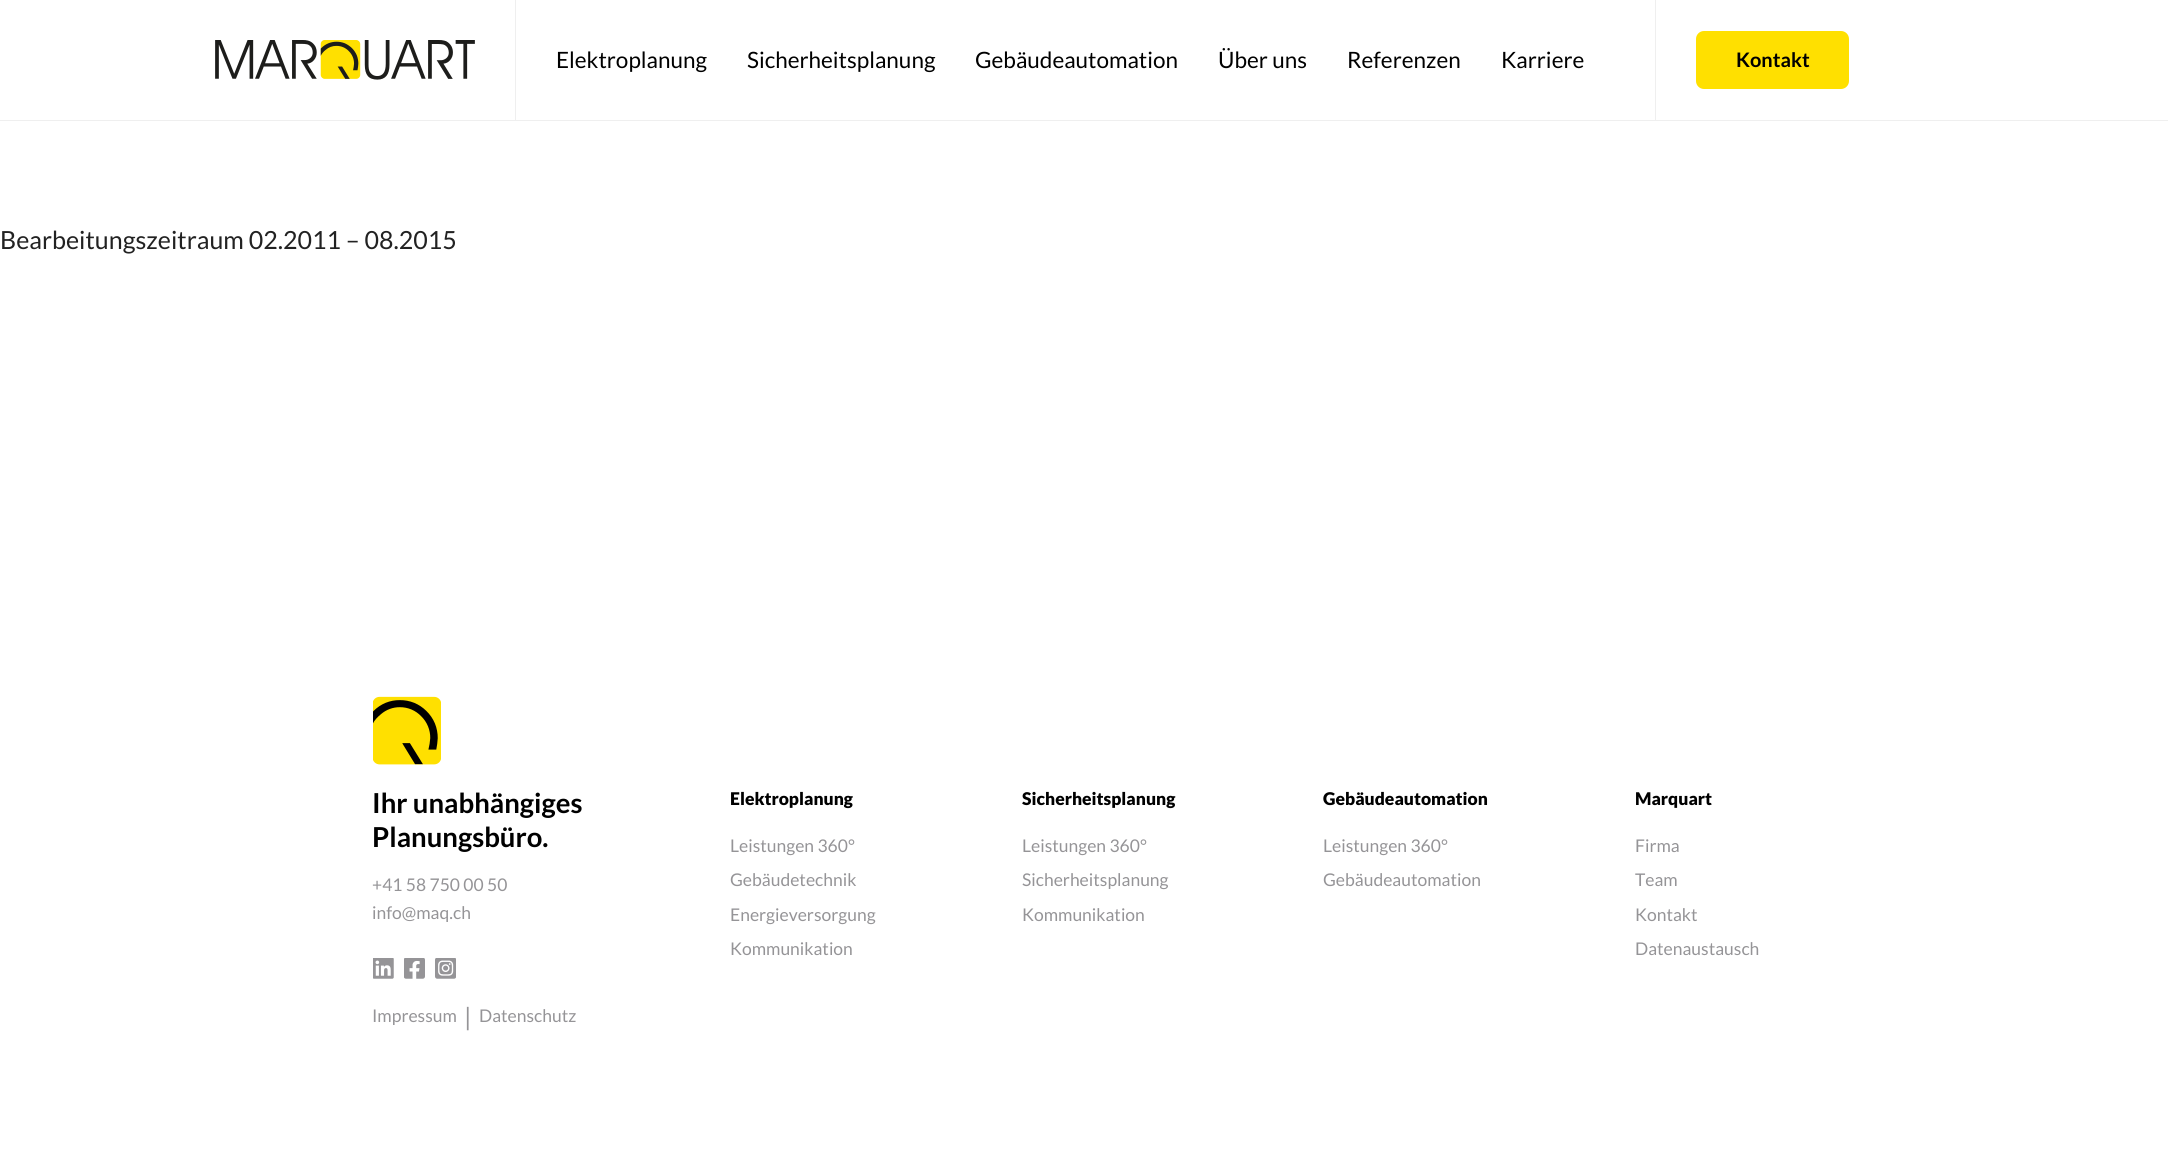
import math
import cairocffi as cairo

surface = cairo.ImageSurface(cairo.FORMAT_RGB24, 2168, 1172)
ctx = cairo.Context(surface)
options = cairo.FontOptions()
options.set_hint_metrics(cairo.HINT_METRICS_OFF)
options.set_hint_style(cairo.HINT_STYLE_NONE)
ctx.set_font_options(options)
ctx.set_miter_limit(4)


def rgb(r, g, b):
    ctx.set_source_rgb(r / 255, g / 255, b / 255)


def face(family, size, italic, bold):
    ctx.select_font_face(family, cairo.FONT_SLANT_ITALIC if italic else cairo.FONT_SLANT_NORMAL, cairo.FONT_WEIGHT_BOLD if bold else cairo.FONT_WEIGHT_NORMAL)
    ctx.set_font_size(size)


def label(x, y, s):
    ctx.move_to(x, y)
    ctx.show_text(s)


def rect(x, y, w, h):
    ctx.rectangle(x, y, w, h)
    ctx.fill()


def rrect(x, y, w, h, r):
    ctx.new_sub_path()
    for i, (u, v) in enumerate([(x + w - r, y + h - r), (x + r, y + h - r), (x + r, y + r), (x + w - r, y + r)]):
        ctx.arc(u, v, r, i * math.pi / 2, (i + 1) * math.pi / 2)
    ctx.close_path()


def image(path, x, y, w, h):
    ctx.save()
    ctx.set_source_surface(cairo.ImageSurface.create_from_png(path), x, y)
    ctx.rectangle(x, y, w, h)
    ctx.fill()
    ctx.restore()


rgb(255, 255, 255)
ctx.paint()
rgb(239, 239, 239)
rect(0, 120, 2168, 1)
image('image0.png', 215, 40, 260, 40)
rect(515, 0, 1, 120)
face('Lato', 22.5, 0, 0)
rgb(0, 0, 0)
label(556, 68, 'Elektroplanung')
label(747, 68, 'Sicherheitsplanung')
label(975, 68, 'Gebäudeautomation')
label(1218, 68, 'Über uns')
label(1347, 68, 'Referenzen')
label(1501, 68, 'Karriere')
rgb(239, 239, 239)
rect(1655, 0, 1, 120)
rgb(255, 224, 0)
rrect(1696, 31, 153, 58, 8)
ctx.fill()
face('Lato', 20, 0, 1)
rgb(0, 0, 0)
label(1736, 67, 'Kontakt')
face('Lato', 25, 0, 0)
rgb(34, 34, 34)
label(0, 249, 'Bearbeitungszeitraum 02.2011 – 08.2015')
image('image1.png', 373, 696, 68, 69)
face('Lato', 27.5, 0, 1)
rgb(0, 0, 0)
label(372, 813, 'Ihr unabhängiges')
label(372, 847, 'Planungsbüro.')
face('Lato', 17.5, 0, 0)
rgb(149, 148, 151)
label(372, 891, '+41 58 750 00 50')
label(372, 919, 'info@maq.ch')
image('image2.png', 373, 958, 21, 21)
image('image3.png', 404, 958, 21, 21)
image('image4.png', 435, 958, 21, 21)
label(372, 1022, 'Impressum')
face('Lato', 25, 0, 0)
label(464, 1026, '|')
face('Lato', 17.5, 0, 0)
label(479, 1022, 'Datenschutz')
face('Lato Black', 17.5, 0, 0)
rgb(0, 0, 0)
label(730, 805, 'Elektroplanung')
face('Lato', 17.5, 0, 0)
rgb(149, 148, 151)
label(730, 852, 'Leistungen 360°')
label(730, 886, 'Gebäudetechnik')
label(730, 921, 'Energieversorgung')
label(730, 955, 'Kommunikation')
face('Lato Black', 17.5, 0, 0)
rgb(0, 0, 0)
label(1022, 805, 'Sicherheitsplanung')
face('Lato', 17.5, 0, 0)
rgb(149, 148, 151)
label(1022, 852, 'Leistungen 360°')
label(1022, 886, 'Sicherheitsplanung')
label(1022, 921, 'Kommunikation')
face('Lato Black', 17.5, 0, 0)
rgb(0, 0, 0)
label(1323, 805, 'Gebäudeautomation')
face('Lato', 17.5, 0, 0)
rgb(149, 148, 151)
label(1323, 852, 'Leistungen 360°')
label(1323, 886, 'Gebäudeautomation')
face('Lato Black', 17.5, 0, 0)
rgb(0, 0, 0)
label(1635, 805, 'Marquart')
face('Lato', 17.5, 0, 0)
rgb(149, 148, 151)
label(1635, 852, 'Firma')
label(1635, 886, 'Team')
label(1635, 921, 'Kontakt')
label(1635, 955, 'Datenaustausch')
surface.write_to_png('render.png')
